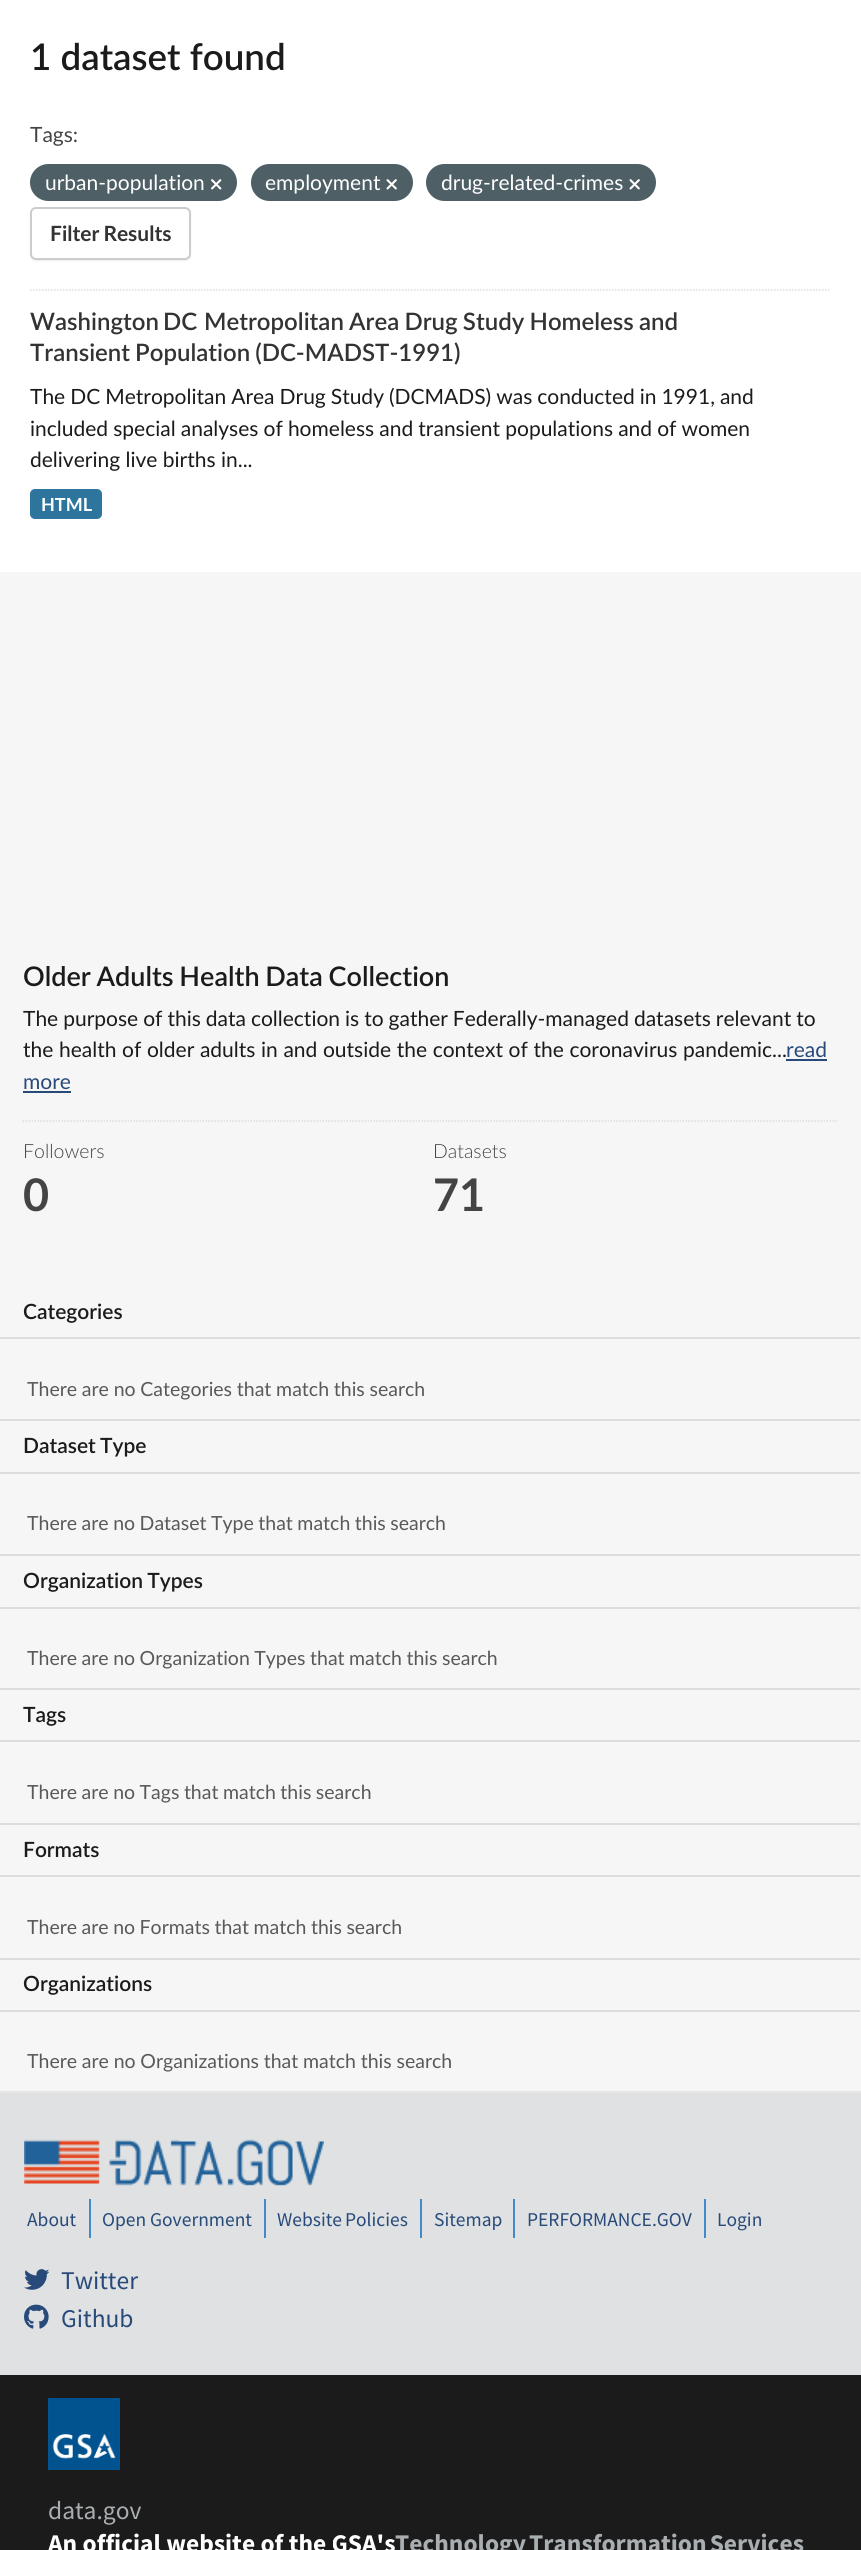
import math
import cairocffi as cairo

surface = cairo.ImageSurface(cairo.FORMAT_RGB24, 861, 2550)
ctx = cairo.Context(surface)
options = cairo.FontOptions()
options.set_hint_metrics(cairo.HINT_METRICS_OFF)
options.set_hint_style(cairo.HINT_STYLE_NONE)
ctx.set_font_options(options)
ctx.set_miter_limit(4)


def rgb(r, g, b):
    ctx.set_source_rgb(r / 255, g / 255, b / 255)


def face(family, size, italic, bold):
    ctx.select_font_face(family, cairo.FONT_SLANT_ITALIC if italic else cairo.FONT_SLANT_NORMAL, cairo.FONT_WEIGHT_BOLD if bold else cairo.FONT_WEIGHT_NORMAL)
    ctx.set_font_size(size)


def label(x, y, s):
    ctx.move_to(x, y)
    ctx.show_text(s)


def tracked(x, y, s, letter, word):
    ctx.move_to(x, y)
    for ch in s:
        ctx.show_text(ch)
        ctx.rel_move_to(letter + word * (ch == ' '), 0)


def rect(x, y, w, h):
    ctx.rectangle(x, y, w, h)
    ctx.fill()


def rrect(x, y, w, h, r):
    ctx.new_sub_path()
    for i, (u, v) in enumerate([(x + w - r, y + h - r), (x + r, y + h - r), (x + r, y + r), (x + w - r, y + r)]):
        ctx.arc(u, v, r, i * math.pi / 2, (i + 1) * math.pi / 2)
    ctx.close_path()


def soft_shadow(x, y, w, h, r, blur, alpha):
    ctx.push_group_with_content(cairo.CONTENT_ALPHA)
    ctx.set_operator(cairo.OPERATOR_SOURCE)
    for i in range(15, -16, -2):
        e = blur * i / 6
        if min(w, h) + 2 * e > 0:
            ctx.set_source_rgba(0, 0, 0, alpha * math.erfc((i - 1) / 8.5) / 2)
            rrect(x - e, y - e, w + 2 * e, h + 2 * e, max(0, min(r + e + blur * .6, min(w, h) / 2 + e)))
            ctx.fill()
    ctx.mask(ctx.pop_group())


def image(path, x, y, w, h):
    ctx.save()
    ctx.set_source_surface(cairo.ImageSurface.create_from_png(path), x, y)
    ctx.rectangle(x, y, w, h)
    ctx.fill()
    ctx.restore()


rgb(246, 246, 246)
ctx.paint()
rgb(255, 255, 255)
rect(0, 0, 861, 572)
face('Lato SemiBold', 36.75, 0, 0)
rgb(27, 27, 27)
label(30, 70, '1 dataset found')
face('Lato', 21, 0, 0)
rgb(68, 68, 68)
label(30, 142, 'Tags:')
rgb(78, 95, 101)
rrect(30, 164, 207, 37, 18.5)
ctx.fill()
rgb(255, 255, 255)
label(45, 190, 'urban-population')
image('image0.png', 211, 179, 11, 11)
rgb(78, 95, 101)
rrect(251, 164, 162, 37, 18.5)
ctx.fill()
rgb(255, 255, 255)
label(265, 190, 'employment')
image('image1.png', 386, 179, 11, 11)
rgb(78, 95, 101)
rrect(426, 164, 230, 37, 18.5)
ctx.fill()
rgb(255, 255, 255)
label(441, 190, 'drug-related-crimes')
image('image1.png', 629, 179, 11, 11)
rgb(0, 0, 0)
soft_shadow(30, 209, 161, 52, 6, 1, 0.07)
rgb(255, 255, 255)
rrect(31, 208, 159, 51, 5)
ctx.fill_preserve()
rgb(204, 204, 204)
ctx.stroke()
face('Lato', 21, 0, 1)
rgb(51, 51, 51)
tracked(50, 241, 'Filter Results', 0, -1)
ctx.new_path()
ctx.move_to(30, 290)
ctx.line_to(831, 290)
rgb(221, 221, 221)
ctx.set_line_width(1.5)
ctx.set_dash([1.5, 1.5])
ctx.stroke()
face('Lato SemiBold', 24, 0, 0)
rgb(51, 51, 51)
label(30, 330, 'Washington')
label(163, 330, 'DC')
tracked(204, 330, 'Metropolitan Area Drug Study Homeless and', 0, -0.75)
tracked(30, 361, 'Transient Population (DC-MADST-1991)', 0, -1)
face('Lato', 21, 0, 0)
rgb(27, 27, 27)
tracked(30, 404, 'The DC Metropolitan Area Drug Study (DCMADS) was conducted in 1991, and', 0, -0.4)
tracked(30, 436, 'included special analyses of homeless and transient populations and of women', 0, -0.25)
label(30, 467, 'delivering live births in...')
rgb(46, 117, 158)
rrect(30, 489, 72, 30, 5)
ctx.fill()
face('Lato', 18, 0, 1)
rgb(255, 255, 255)
label(41, 511, 'HTML')
face('Lato SemiBold', 27, 0, 0)
rgb(27, 27, 27)
tracked(23, 986, 'Older Adults Health Data Collection', 0, -1)
face('Lato', 21, 0, 0)
tracked(23, 1026, 'The purpose of this data collection is to gather Federally-managed datasets relevant to', 0, -0.4)
tracked(23, 1057, 'the health of older adults in and outside the context of the coronavirus pandemic...', 0, 0.25)
rgb(40, 74, 122)
label(786, 1057, 'read')
rect(786, 1059, 41, 2)
label(23, 1089, 'more')
rect(23, 1091, 48, 2)
ctx.new_path()
ctx.move_to(22.5, 1121)
ctx.line_to(837, 1121)
rgb(221, 221, 221)
ctx.stroke()
face('Lato Light', 19.5, 0, 0)
rgb(68, 68, 68)
label(23, 1158, 'Followers')
face('Lato', 45, 0, 1)
label(23, 1211, '0')
face('Lato Light', 19.5, 0, 0)
label(433, 1158, 'Datasets')
face('Lato', 45, 0, 1)
label(433, 1211, '71')
rgb(221, 221, 221)
rect(0, 1337, 860, 2)
face('Lato SemiBold', 21, 0, 0)
rgb(27, 27, 27)
label(23, 1319, 'Categories')
face('Lato', 19.5, 0, 0)
rgb(89, 89, 89)
tracked(27, 1396, 'There are no Categories that match this search', 0, -0.25)
rgb(221, 221, 221)
rect(0, 1419, 860, 2)
rect(0, 1472, 860, 2)
face('Lato SemiBold', 21, 0, 0)
rgb(27, 27, 27)
tracked(23, 1453, 'Dataset Type', 0, -1)
face('Lato', 19.5, 0, 0)
rgb(89, 89, 89)
tracked(27, 1530, 'There are no Dataset Type that match this search', 0, -0.5)
rgb(221, 221, 221)
rect(0, 1554, 860, 2)
rect(0, 1607, 860, 2)
face('Lato SemiBold', 21, 0, 0)
rgb(27, 27, 27)
tracked(23, 1588, 'Organization Types', 0, -1)
face('Lato', 19.5, 0, 0)
rgb(89, 89, 89)
tracked(27, 1665, 'There are no Organization Types that match this search', 0, -0.5)
rgb(221, 221, 221)
rect(0, 1688, 860, 2)
rect(0, 1740, 860, 2)
face('Lato SemiBold', 21, 0, 0)
rgb(27, 27, 27)
label(23, 1722, 'Tags')
face('Lato', 19.5, 0, 0)
rgb(89, 89, 89)
tracked(27, 1799, 'There are no Tags that match this search', 0, -0.5)
rgb(221, 221, 221)
rect(0, 1823, 860, 2)
rect(0, 1875, 860, 2)
face('Lato SemiBold', 21, 0, 0)
rgb(27, 27, 27)
label(23, 1857, 'Formats')
face('Lato', 19.5, 0, 0)
rgb(89, 89, 89)
tracked(27, 1934, 'There are no Formats that match this search', 0, -0.5)
rgb(221, 221, 221)
rect(0, 1958, 860, 2)
rect(0, 2010, 860, 2)
face('Lato SemiBold', 21, 0, 0)
rgb(27, 27, 27)
label(23, 1991, 'Organizations')
face('Lato', 19.5, 0, 0)
rgb(89, 89, 89)
tracked(27, 2068, 'There are no Organizations that match this search', 0, -0.25)
rgb(231, 231, 231)
rect(0, 2091, 861, 2)
rgb(223, 225, 226)
rect(0, 2093, 861, 282)
image('image2.png', 24, 2139, 300, 47)
face('Source Sans Pro', 19.5, 0, 0)
rgb(40, 74, 122)
label(27, 2226, 'About')
rgb(66, 139, 202)
rect(89, 2199, 2, 39)
rgb(40, 74, 122)
label(102, 2226, 'Open Government')
rgb(66, 139, 202)
rect(264, 2199, 2, 39)
rgb(40, 74, 122)
tracked(277, 2226, 'Website Policies', 0, -1)
rgb(66, 139, 202)
rect(420, 2199, 2, 39)
rgb(40, 74, 122)
label(434, 2226, 'Sitemap')
rgb(66, 139, 202)
rect(513, 2199, 2, 39)
rgb(40, 74, 122)
label(527, 2226, 'PERFORMANCE.GOV')
rgb(66, 139, 202)
rect(704, 2199, 2, 39)
rgb(40, 74, 122)
label(717, 2226, 'Login')
image('image3.png', 24, 2269, 26, 21)
face('Source Sans Pro', 25.5, 0, 0)
label(61, 2289, 'Twitter')
image('image4.png', 24, 2304, 25, 25)
label(61, 2327, 'Github')
rgb(27, 27, 27)
rect(0, 2375, 861, 175)
image('image5.png', 48, 2398, 72, 72)
rgb(169, 174, 177)
label(48, 2519, 'data.gov')
face('Source Sans Pro', 25.5, 0, 1)
rgb(255, 255, 255)
tracked(48, 2552, 'An official website of the GSA\'s', 0, 0.25)
rgb(169, 174, 177)
tracked(395, 2552, 'Technology Transformation Services', 0, -2)
surface.write_to_png('render.png')
